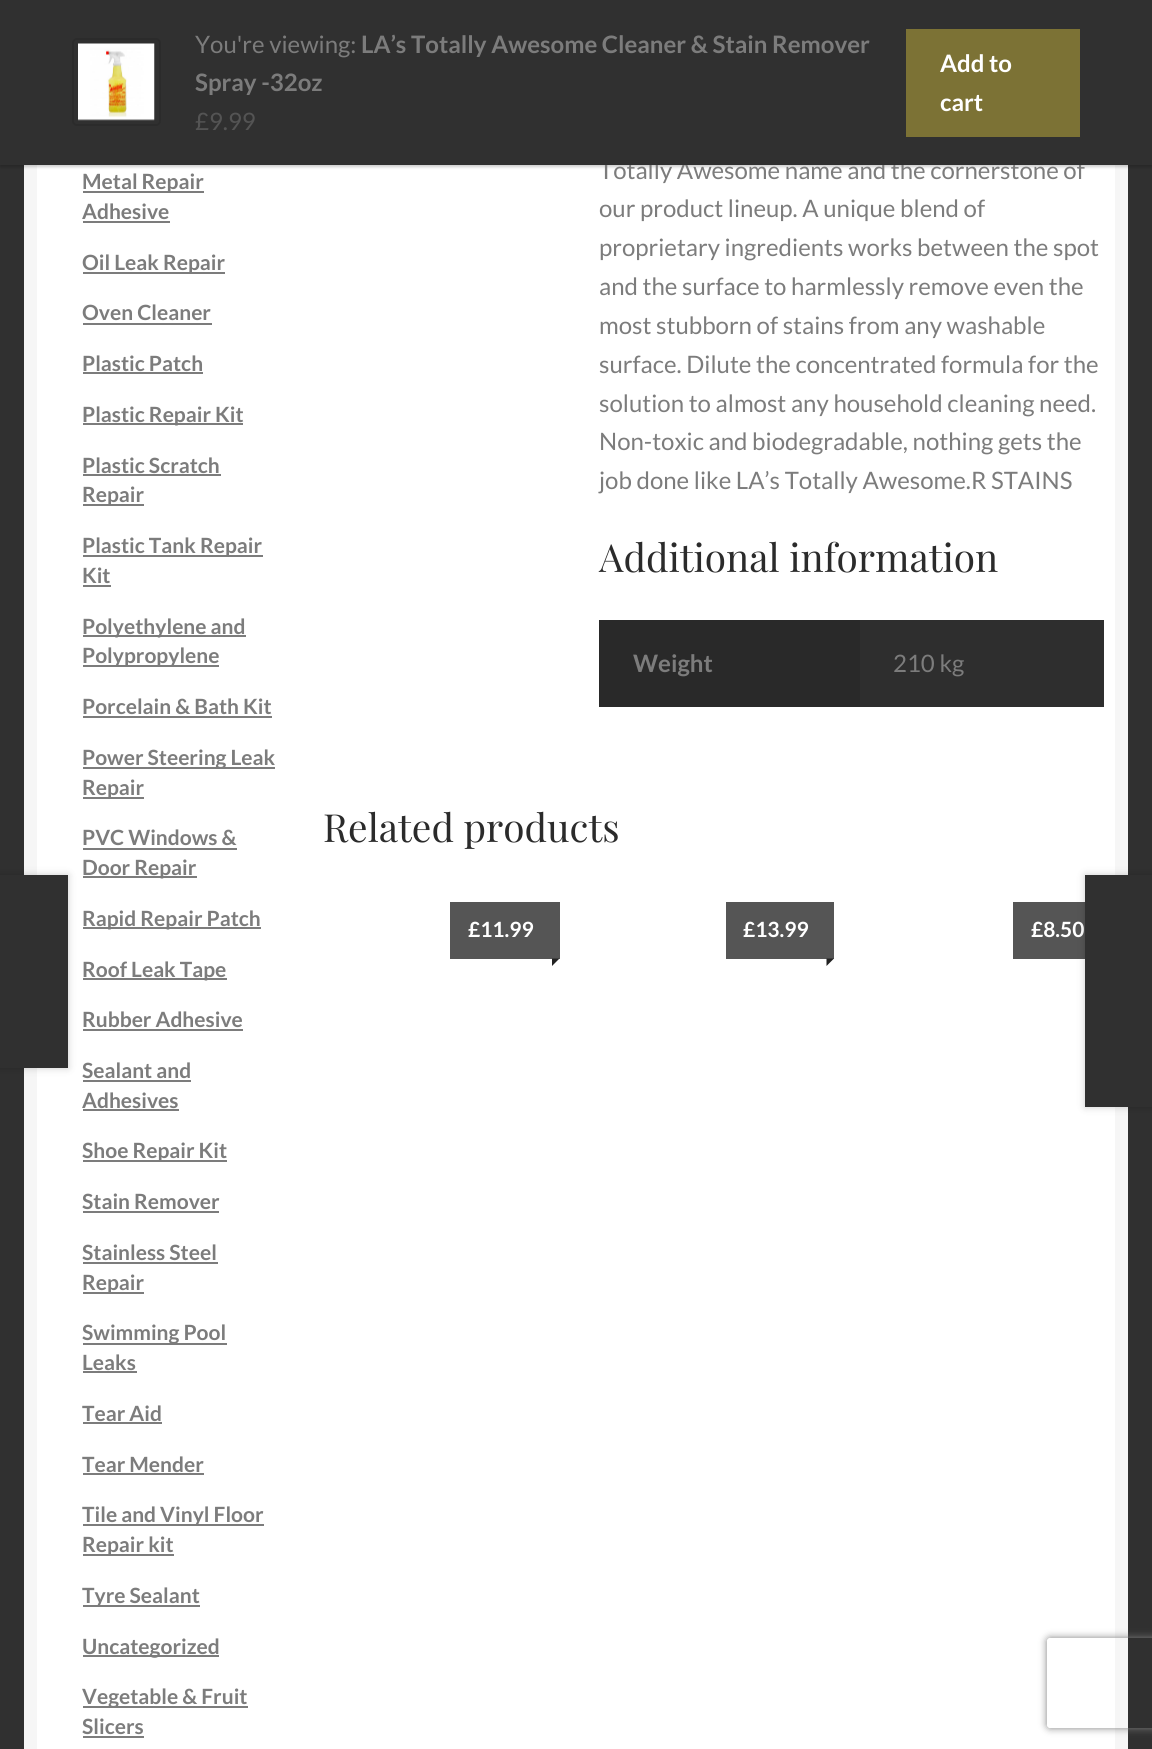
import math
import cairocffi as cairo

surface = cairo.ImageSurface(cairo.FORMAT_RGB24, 1152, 1749)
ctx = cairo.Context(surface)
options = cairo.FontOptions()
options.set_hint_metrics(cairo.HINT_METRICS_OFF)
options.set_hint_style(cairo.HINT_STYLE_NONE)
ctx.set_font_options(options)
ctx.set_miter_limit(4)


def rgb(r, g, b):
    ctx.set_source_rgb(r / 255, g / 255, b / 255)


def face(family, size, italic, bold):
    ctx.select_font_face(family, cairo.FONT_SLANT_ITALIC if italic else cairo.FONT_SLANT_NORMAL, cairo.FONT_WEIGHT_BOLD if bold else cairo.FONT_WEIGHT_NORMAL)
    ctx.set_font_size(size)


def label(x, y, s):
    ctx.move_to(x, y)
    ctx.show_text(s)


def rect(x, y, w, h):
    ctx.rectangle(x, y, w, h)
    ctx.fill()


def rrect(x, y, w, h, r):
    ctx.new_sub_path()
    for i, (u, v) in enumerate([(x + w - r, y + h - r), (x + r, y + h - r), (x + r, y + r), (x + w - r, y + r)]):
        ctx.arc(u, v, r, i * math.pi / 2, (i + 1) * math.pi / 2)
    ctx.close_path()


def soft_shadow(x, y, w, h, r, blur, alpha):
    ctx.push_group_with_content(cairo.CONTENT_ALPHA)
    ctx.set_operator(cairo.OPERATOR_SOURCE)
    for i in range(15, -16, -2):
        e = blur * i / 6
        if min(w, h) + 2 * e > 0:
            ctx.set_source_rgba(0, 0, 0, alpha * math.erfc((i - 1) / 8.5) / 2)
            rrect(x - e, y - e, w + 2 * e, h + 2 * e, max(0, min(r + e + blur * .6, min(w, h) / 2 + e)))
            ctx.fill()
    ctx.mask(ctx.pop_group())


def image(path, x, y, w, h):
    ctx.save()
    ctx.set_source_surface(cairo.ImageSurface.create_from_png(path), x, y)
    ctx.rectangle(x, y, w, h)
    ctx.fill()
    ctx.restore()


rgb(48, 48, 48)
ctx.paint()
rgb(255, 255, 255)
rect(37, 165, 1078, 1584)
ctx.rectangle(30.5, -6.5, 1091, 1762)
rgb(246, 246, 246)
ctx.set_line_width(13)
ctx.stroke()
rgb(0, 0, 0)
soft_shadow(0, 2, 1152, 165, 0, 1.5, 0.2)
face('Lato', 24, 0, 0)
rgb(124, 124, 124)
label(599, 179, 'Totally Awesome name and the cornerstone of')
rgb(48, 48, 48)
rect(0, 0, 1152, 165)
rrect(73, 39, 87, 86, 4)
rgb(43, 43, 43)
ctx.set_line_width(2)
ctx.stroke()
image('image0.png', 78, 43, 77, 78)
rgb(124, 124, 124)
label(195, 53, 'You\'re viewing:')
face('Lato', 24, 0, 1)
label(361, 53, 'LA’s Totally Awesome Cleaner & Stain Remover')
label(195, 91, 'Spray -32oz')
face('Lato', 24, 0, 0)
rgb(84, 84, 84)
label(195, 130, '£9.99')
rgb(124, 114, 53)
rect(906, 29, 174, 108)
face('Lato', 24, 0, 1)
rgb(255, 255, 255)
label(940, 72, 'Add to')
label(940, 111, 'cart')
rgb(124, 124, 124)
rect(83, 191, 121, 2)
face('Lato', 21, 0, 1)
label(82, 189, 'Metal Repair')
label(82, 219, 'Adhesive')
rect(83, 221, 87, 2)
rect(83, 272, 142, 2)
label(82, 270, 'Oil Leak Repair')
label(82, 320, 'Oven Cleaner')
rect(83, 323, 129, 2)
label(82, 371, 'Plastic Patch')
rect(83, 372, 120, 2)
rect(83, 423, 160, 2)
label(82, 422, 'Plastic Repair Kit')
label(82, 473, 'Plastic Scratch')
rect(83, 474, 138, 2)
rect(83, 504, 61, 2)
label(82, 502, 'Repair')
rect(83, 555, 180, 2)
label(82, 553, 'Plastic Tank Repair')
label(82, 583, 'Kit')
rect(83, 585, 28, 2)
rect(83, 635, 163, 2)
label(82, 634, 'Polyethylene and')
rect(83, 665, 136, 2)
label(82, 663, 'Polypropylene')
label(82, 714, 'Porcelain & Bath Kit')
rect(83, 716, 189, 2)
rect(83, 767, 192, 2)
label(82, 765, 'Power Steering Leak')
rect(83, 797, 61, 2)
label(82, 795, 'Repair')
label(82, 845, 'PVC Windows &')
rect(83, 848, 154, 2)
rect(83, 876, 114, 2)
label(82, 875, 'Door Repair')
rect(83, 927, 178, 2)
label(82, 926, 'Rapid Repair Patch')
rect(83, 978, 144, 2)
label(82, 977, 'Roof Leak Tape')
label(82, 1027, 'Rubber Adhesive')
rect(83, 1029, 160, 2)
label(82, 1078, 'Sealant and')
rect(83, 1080, 108, 2)
label(82, 1108, 'Adhesives')
rect(83, 1109, 96, 2)
rect(83, 1160, 144, 2)
label(82, 1158, 'Shoe Repair Kit')
label(82, 1209, 'Stain Remover')
rect(83, 1211, 136, 2)
label(82, 1260, 'Stainless Steel')
rect(83, 1262, 135, 2)
rect(83, 1292, 61, 2)
label(82, 1290, 'Repair')
rect(83, 1343, 144, 2)
label(82, 1340, 'Swimming Pool')
label(82, 1370, 'Leaks')
rect(83, 1371, 54, 2)
label(82, 1421, 'Tear Aid')
rect(83, 1422, 79, 2)
label(82, 1472, 'Tear Mender')
rect(83, 1473, 121, 2)
rect(83, 1524, 181, 2)
label(82, 1522, 'Tile and Vinyl Floor')
rect(83, 1554, 91, 2)
label(82, 1552, 'Repair kit')
rect(83, 1605, 117, 2)
label(82, 1603, 'Tyre Sealant')
rect(83, 1655, 136, 2)
label(82, 1654, 'Uncategorized')
rect(83, 1706, 165, 2)
label(82, 1704, 'Vegetable & Fruit')
label(82, 1734, 'Slicers')
rect(83, 1736, 61, 2)
face('Lato', 24, 0, 0)
label(599, 217, 'our product lineup. A unique blend of')
label(599, 256, 'proprietary ingredients works between the spot')
label(599, 295, 'and the surface to harmlessly remove even the')
label(599, 334, 'most stubborn of stains from any washable')
label(599, 373, 'surface. Dilute the concentrated formula for the')
label(599, 412, 'solution to almost any household cleaning need.')
label(599, 450, 'Non-toxic and biodegradable, nothing gets the')
label(599, 489, 'job done like LA’s Totally Awesome.R STAINS')
face('Playfair Display', 38.75, 0, 0)
rgb(43, 43, 43)
label(599, 572, 'Additional information')
rgb(41, 41, 41)
rect(599, 620, 261, 87)
face('Lato', 24, 0, 1)
rgb(124, 124, 124)
label(633, 672, 'Weight')
rgb(46, 46, 46)
rect(860, 620, 244, 87)
face('Lato', 24, 0, 0)
rgb(124, 124, 124)
label(893, 672, '210 kg')
face('Playfair Display', 38.75, 0, 0)
rgb(43, 43, 43)
label(323, 842, 'Related products')
rgb(85, 85, 85)
ctx.new_path()
ctx.move_to(458, 958)
ctx.line_to(458, 959)
ctx.line_to(560, 959)
ctx.line_to(560, 902)
ctx.line_to(552, 902)
ctx.line_to(552, 958)
ctx.close_path()
ctx.fill()
rect(450, 902, 102, 57)
face('Lato', 21, 0, 1)
rgb(255, 255, 255)
label(468, 937, '£11.99')
rgb(34, 34, 34)
ctx.new_path()
ctx.move_to(552, 958.5)
ctx.line_to(559.5, 958.5)
ctx.line_to(552, 966)
ctx.close_path()
ctx.fill()
rgb(85, 85, 85)
ctx.new_path()
ctx.move_to(734, 958)
ctx.line_to(734, 959)
ctx.line_to(834, 959)
ctx.line_to(834, 902)
ctx.line_to(826, 902)
ctx.line_to(826, 958)
ctx.close_path()
ctx.fill()
rect(726, 902, 100, 57)
rgb(255, 255, 255)
label(743, 937, '£13.99')
rgb(34, 34, 34)
ctx.new_path()
ctx.move_to(826.5, 958.5)
ctx.line_to(834, 958.5)
ctx.line_to(826.5, 966)
ctx.close_path()
ctx.fill()
rgb(85, 85, 85)
rect(1013, 902, 72, 57)
rgb(255, 255, 255)
label(1031, 937, '£8.50')
rgb(0, 0, 0)
soft_shadow(-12, 875, 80, 193, 0, 4, 0.2)
rgb(48, 48, 48)
rect(0, 875, 68, 193)
rgb(0, 0, 0)
soft_shadow(1085, 875, 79, 232, 0, 4, 0.2)
rgb(48, 48, 48)
rect(1085, 875, 67, 232)
ctx.save()
ctx.set_fill_rule(cairo.FILL_RULE_EVEN_ODD)
ctx.new_path()
ctx.move_to(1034, 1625)
ctx.line_to(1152, 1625)
ctx.line_to(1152, 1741)
ctx.line_to(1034, 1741)
ctx.close_path()
ctx.move_to(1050, 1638)
ctx.line_to(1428, 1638)
ctx.curve_to(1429.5, 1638, 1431, 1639.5, 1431, 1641)
ctx.line_to(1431, 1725)
ctx.curve_to(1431, 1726.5, 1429.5, 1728, 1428, 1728)
ctx.line_to(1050, 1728)
ctx.curve_to(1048.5, 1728, 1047, 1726.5, 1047, 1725)
ctx.line_to(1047, 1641)
ctx.curve_to(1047, 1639.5, 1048.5, 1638, 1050, 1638)
ctx.close_path()
ctx.clip()
rgb(128, 128, 128)
soft_shadow(1047, 1638, 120, 90, 3, 4, 1)
ctx.restore()
surface.write_to_png('render.png')
